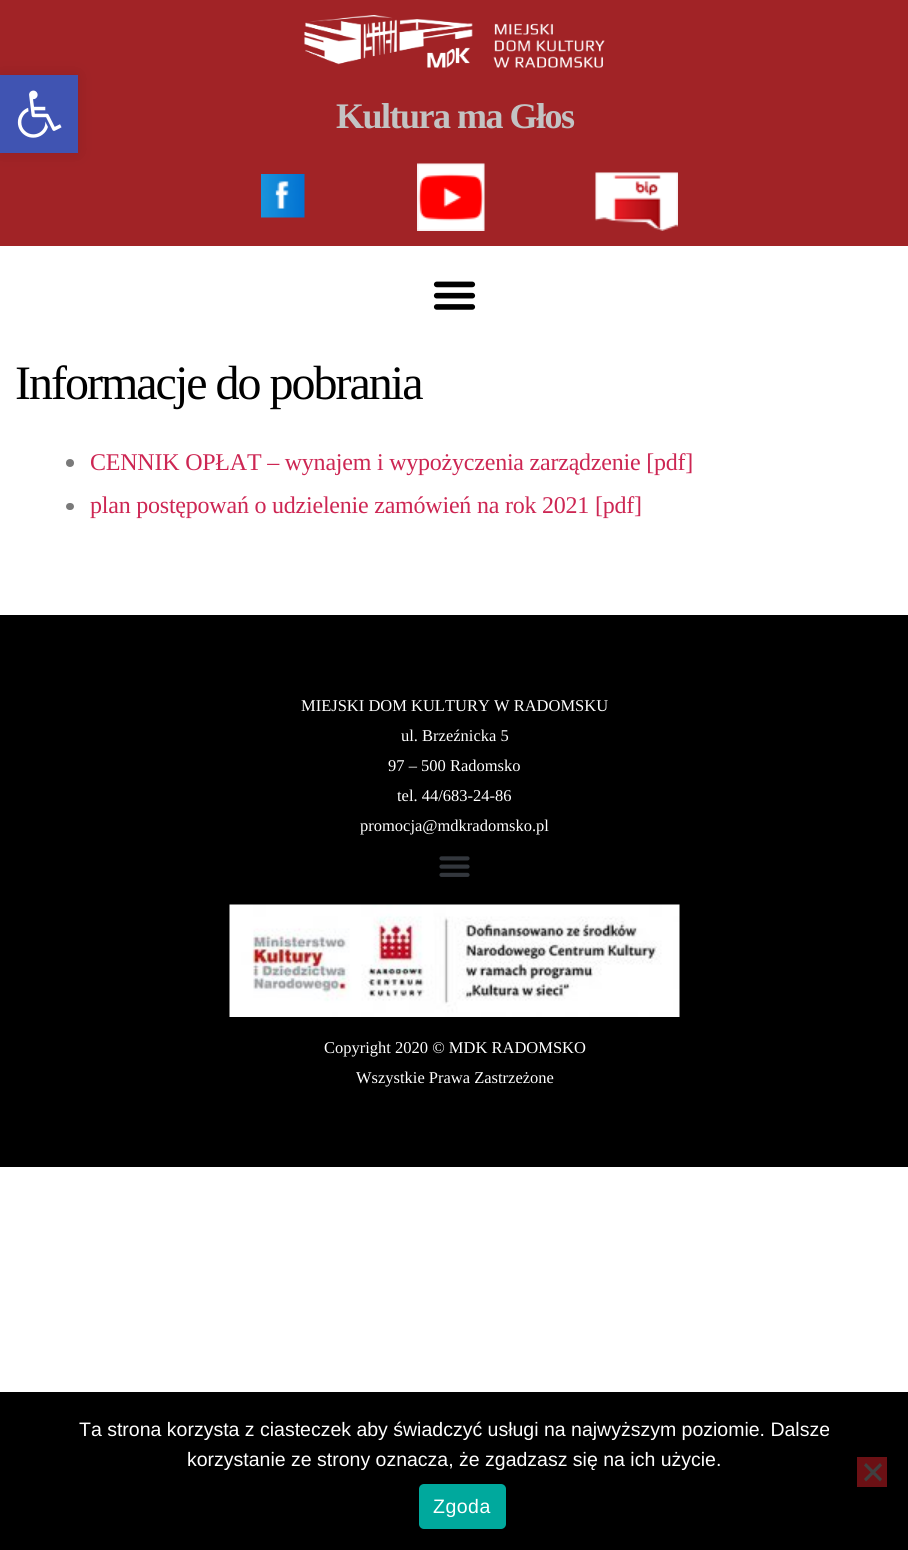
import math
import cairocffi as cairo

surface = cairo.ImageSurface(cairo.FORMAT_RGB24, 908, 1550)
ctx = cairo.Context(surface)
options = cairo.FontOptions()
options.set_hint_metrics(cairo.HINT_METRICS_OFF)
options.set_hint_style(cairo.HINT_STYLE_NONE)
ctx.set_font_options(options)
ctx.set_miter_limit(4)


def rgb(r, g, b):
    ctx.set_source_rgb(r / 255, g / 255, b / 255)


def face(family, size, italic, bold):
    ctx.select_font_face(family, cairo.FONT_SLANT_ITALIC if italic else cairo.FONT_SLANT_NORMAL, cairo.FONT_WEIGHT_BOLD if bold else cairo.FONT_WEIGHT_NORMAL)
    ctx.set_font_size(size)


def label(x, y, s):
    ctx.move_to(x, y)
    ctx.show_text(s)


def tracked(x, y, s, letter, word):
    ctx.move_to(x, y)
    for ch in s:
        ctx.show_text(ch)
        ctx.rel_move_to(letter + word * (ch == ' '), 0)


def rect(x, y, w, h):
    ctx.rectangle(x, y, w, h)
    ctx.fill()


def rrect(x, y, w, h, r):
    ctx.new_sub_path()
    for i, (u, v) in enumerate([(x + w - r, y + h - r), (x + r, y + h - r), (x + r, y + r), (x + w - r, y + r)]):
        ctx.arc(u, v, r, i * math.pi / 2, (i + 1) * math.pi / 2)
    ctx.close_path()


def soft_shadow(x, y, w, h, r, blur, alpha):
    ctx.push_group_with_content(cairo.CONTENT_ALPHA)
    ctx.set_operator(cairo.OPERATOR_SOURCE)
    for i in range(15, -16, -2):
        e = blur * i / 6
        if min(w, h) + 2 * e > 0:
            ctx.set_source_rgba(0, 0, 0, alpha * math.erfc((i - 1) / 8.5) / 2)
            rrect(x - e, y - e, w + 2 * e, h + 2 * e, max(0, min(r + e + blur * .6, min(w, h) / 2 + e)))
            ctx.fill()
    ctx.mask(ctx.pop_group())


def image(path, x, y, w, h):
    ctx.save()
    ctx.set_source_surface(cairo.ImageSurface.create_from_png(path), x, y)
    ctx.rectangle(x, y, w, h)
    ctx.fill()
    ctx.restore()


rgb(255, 255, 255)
ctx.paint()
rgb(161, 35, 38)
rect(0, 0, 908, 246)
rgb(0, 0, 0)
soft_shadow(0, 75, 78, 78, 0, 7.5, 0.1)
rgb(64, 84, 178)
rect(0, 75, 78, 78)
image('image0.png', 17, 90, 45, 48)
image('image1.png', 304, 15, 301, 53)
face('Liberation Serif', 36, 0, 1)
rgb(195, 195, 195)
tracked(336, 128, 'Kultura ma Głos', -1.5, 0)
image('image2.png', 261, 174, 44, 44)
image('image3.png', 417, 163, 68, 68)
image('image4.png', 595, 172, 83, 59)
image('image5.png', 433, 281, 43, 29)
face('Liberation Serif', 48, 0, 0)
rgb(0, 0, 0)
tracked(15, 399, 'Informacje do pobrania', -2, 0)
rgb(122, 122, 122)
ctx.new_path()
ctx.arc(70, 463, 4, 0, 2 * math.pi)
ctx.fill()
face('Liberation Serif', 24, 0, 0)
rgb(205, 38, 83)
tracked(90, 470, 'CENNIK OPŁAT – wynajem i wypożyczenia zarządzenie [pdf]', -0.22, 0)
rgb(122, 122, 122)
rrect(66, 503, 8, 7, 3.5)
ctx.fill()
rgb(205, 38, 83)
tracked(90, 513, 'plan postępowań o udzielenie zamówień na rok 2021 [pdf]', -0.22, 0)
rgb(0, 0, 0)
rect(0, 615, 908, 552)
face('Liberation Serif', 16.5, 0, 0)
rgb(255, 255, 255)
label(301, 711, 'MIEJSKI DOM KULTURY W RADOMSKU')
label(401, 741, 'ul. Brzeźnicka 5')
label(388, 771, '97 – 500 Radomsko')
label(397, 801, 'tel. 44/683-24-86')
label(360, 831, 'promocja@mdkradomsko.pl')
image('image6.png', 439, 856, 31, 21)
image('image7.png', 229, 904, 451, 113)
label(324, 1053, 'Copyright 2020 © MDK RADOMSKO')
label(356, 1083, 'Wszystkie Prawa Zastrzeżone')
rgb(0, 0, 0)
rect(0, 1392, 908, 158)
face('Liberation Sans', 19.5, 0, 0)
rgb(255, 255, 255)
label(79, 1436, 'Ta strona korzysta z ciasteczek aby świadczyć usługi na najwyższym poziomie. Dalsze')
label(187, 1466, 'korzystanie ze strony oznacza, że zgadzasz się na ich użycie.')
rgb(107, 16, 20)
rect(857, 1457, 30, 30)
rgb(64, 64, 64)
ctx.new_path()
ctx.move_to(880, 1463)
ctx.line_to(882, 1465.5)
ctx.line_to(866, 1481.5)
ctx.line_to(864, 1479)
ctx.close_path()
ctx.fill()
ctx.new_path()
ctx.move_to(864, 1465.5)
ctx.line_to(866, 1463)
ctx.line_to(882, 1479)
ctx.line_to(880, 1481.5)
ctx.close_path()
ctx.fill()
rgb(0, 169, 157)
rrect(419, 1484, 87, 45, 5)
ctx.fill()
rgb(255, 255, 255)
tracked(433, 1513, 'Zgoda', 0.5, 0)
surface.write_to_png('render.png')
